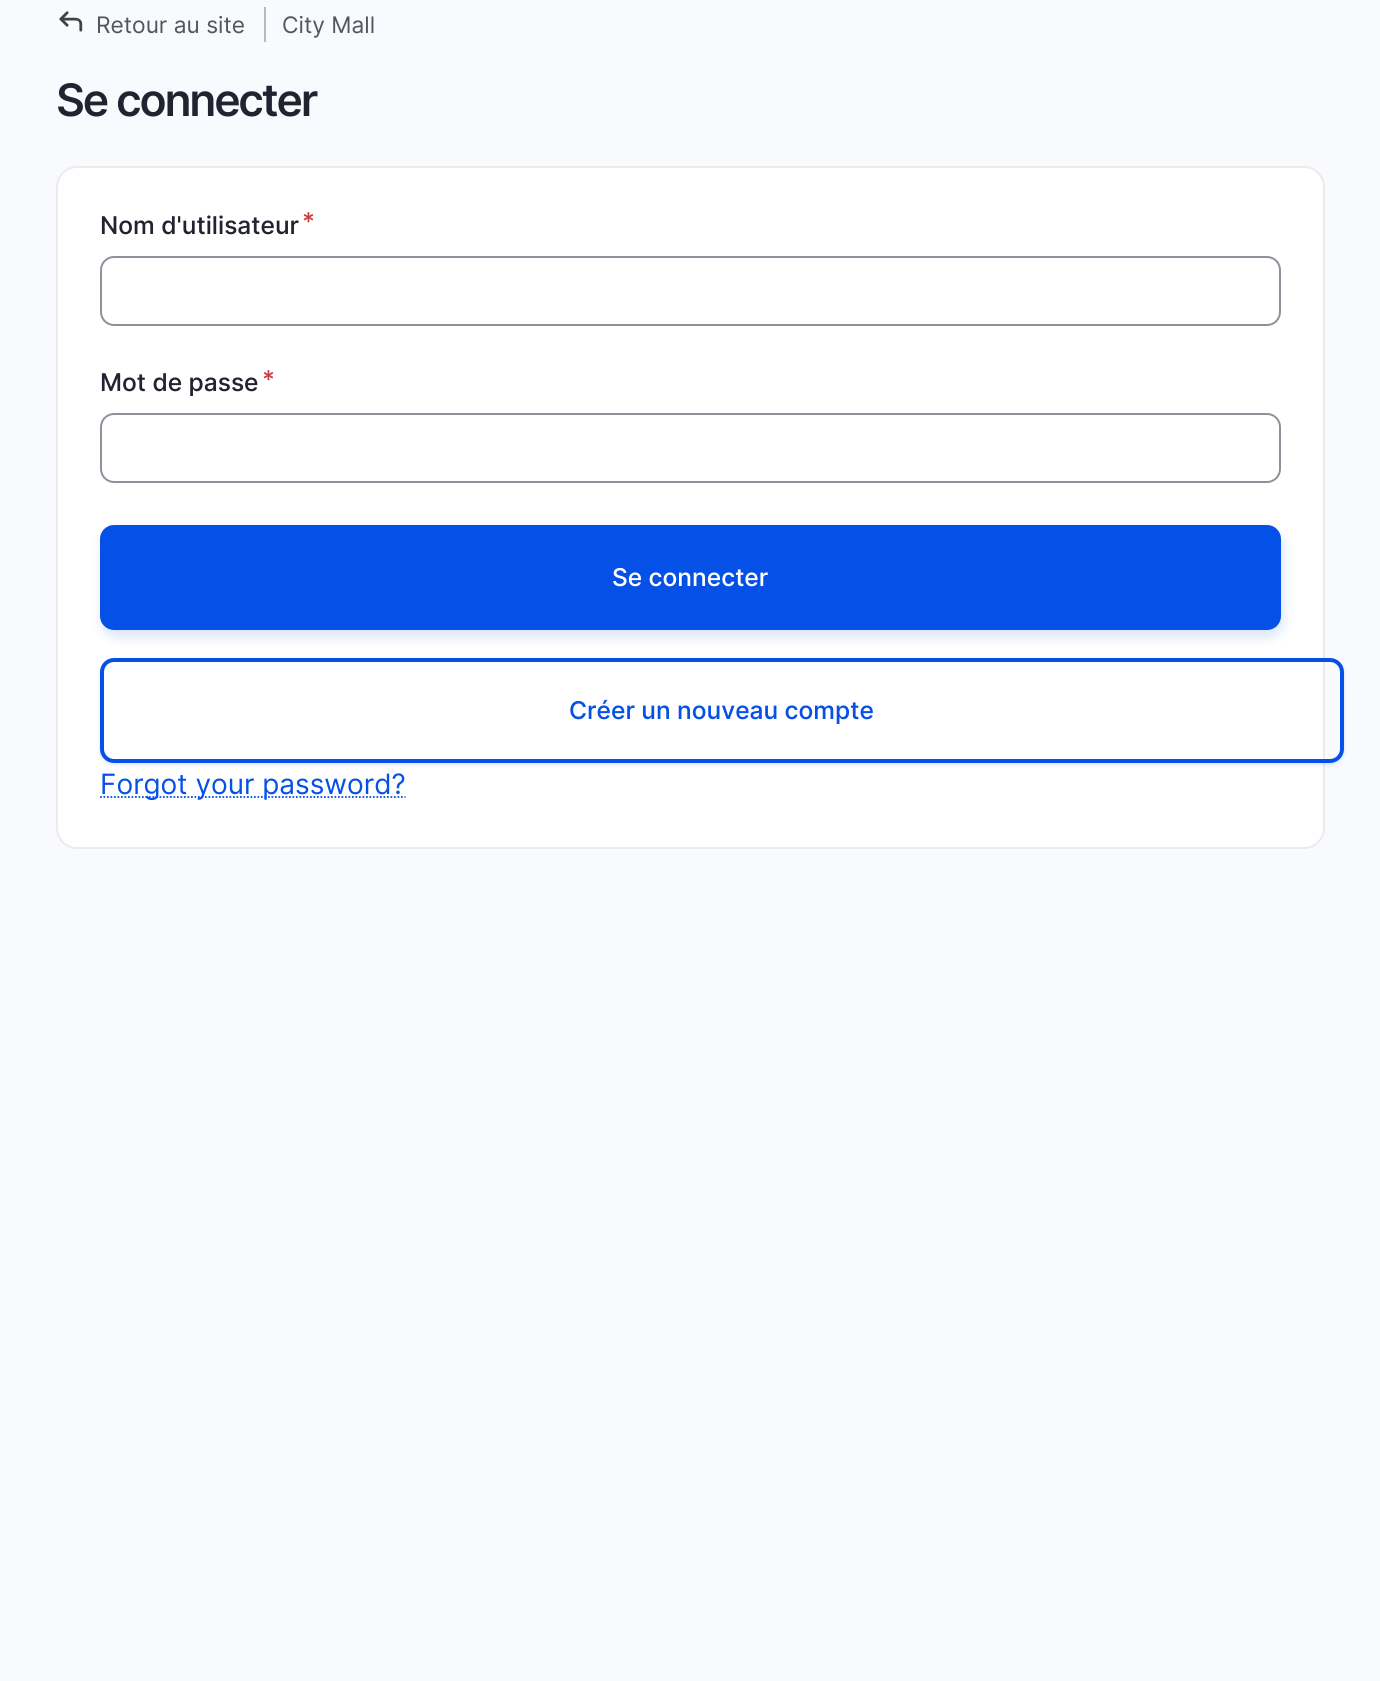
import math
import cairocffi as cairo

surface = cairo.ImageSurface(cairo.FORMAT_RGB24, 1380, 1681)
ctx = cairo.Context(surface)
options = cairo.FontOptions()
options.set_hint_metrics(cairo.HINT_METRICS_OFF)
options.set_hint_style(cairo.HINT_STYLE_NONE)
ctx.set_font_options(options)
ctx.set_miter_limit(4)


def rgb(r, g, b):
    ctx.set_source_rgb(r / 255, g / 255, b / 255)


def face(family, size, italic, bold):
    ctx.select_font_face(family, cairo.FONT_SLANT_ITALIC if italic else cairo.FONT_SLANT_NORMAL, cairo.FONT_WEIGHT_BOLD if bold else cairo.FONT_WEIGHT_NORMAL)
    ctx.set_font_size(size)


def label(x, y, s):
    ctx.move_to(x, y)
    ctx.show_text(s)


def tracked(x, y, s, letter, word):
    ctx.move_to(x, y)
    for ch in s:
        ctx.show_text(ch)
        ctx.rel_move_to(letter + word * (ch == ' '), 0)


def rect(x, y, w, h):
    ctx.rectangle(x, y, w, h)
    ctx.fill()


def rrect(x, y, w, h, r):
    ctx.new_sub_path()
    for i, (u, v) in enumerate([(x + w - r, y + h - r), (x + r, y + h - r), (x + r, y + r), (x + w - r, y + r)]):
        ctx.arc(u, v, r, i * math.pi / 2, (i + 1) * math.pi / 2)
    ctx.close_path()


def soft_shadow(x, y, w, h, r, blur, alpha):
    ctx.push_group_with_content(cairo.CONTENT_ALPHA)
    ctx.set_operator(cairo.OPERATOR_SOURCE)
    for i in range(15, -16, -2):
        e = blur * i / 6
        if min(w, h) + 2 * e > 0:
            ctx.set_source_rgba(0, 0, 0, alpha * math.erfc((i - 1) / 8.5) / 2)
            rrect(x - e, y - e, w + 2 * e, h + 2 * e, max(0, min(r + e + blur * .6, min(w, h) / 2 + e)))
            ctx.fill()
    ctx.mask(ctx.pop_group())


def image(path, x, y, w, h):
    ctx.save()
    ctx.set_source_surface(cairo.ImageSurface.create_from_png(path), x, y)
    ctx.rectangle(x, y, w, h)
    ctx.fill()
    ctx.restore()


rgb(248, 250, 254)
ctx.paint()
image('image0.png', 59, 11, 24, 21)
face('Inter', 22.75, 0, 0)
rgb(84, 85, 96)
label(96, 33, 'Retour au site')
rgb(184, 186, 192)
rect(264, 7, 2, 35)
rgb(84, 85, 96)
label(282, 33, 'City Mall')
face('Inter SemiBold', 44.75, 0, 0)
rgb(34, 35, 48)
tracked(56, 116, 'Se connecter', -2.25, 0)
rgb(255, 255, 255)
rrect(56, 166, 1269, 683, 21)
ctx.fill()
rrect(57, 167, 1267, 681, 20)
ctx.set_source_rgba(0, 0, 0, 0.08)
ctx.stroke()
face('Inter Medium', 24.5, 0, 0)
rgb(34, 35, 48)
label(100, 234, 'Nom d\'utilisateur')
rgb(204, 61, 61)
label(302, 230, '*')
rrect(101, 257, 1179, 68, 13)
rgb(142, 146, 156)
ctx.stroke()
rgb(34, 35, 48)
label(100, 391, 'Mot de passe')
rgb(204, 61, 61)
label(262, 388, '*')
rrect(101, 414, 1179, 68, 13)
rgb(142, 146, 156)
ctx.stroke()
rgb(5, 80, 230)
soft_shadow(102, 532, 1181, 105, 14, 6, 0.15)
rgb(5, 80, 230)
rrect(102, 527, 1177, 101, 12)
ctx.fill_preserve()
ctx.set_line_width(4)
ctx.stroke()
rgb(255, 255, 255)
label(612, 586, 'Se connecter')
ctx.save()
ctx.set_fill_rule(cairo.FILL_RULE_EVEN_ODD)
ctx.new_path()
ctx.move_to(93, 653)
ctx.line_to(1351, 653)
ctx.line_to(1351, 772)
ctx.line_to(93, 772)
ctx.close_path()
ctx.move_to(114, 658)
ctx.line_to(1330, 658)
ctx.curve_to(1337.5, 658, 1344, 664.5, 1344, 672)
ctx.line_to(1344, 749)
ctx.curve_to(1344, 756.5, 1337.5, 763, 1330, 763)
ctx.line_to(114, 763)
ctx.curve_to(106.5, 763, 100, 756.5, 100, 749)
ctx.line_to(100, 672)
ctx.curve_to(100, 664.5, 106.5, 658, 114, 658)
ctx.close_path()
ctx.clip()
rgb(5, 80, 230)
soft_shadow(100, 660, 1244, 105, 14, 2, 0.15)
ctx.restore()
rrect(102, 660, 1240, 101, 12)
rgb(5, 80, 230)
ctx.stroke()
label(569, 719, 'Créer un nouveau compte')
ctx.new_path()
ctx.move_to(100, 797)
ctx.line_to(405.5, 797)
ctx.set_line_width(1.8)
ctx.set_dash([1.75, 1.75])
ctx.stroke()
face('Inter', 28, 0, 0)
label(100, 794, 'Forgot your password?')
surface.write_to_png('render.png')
